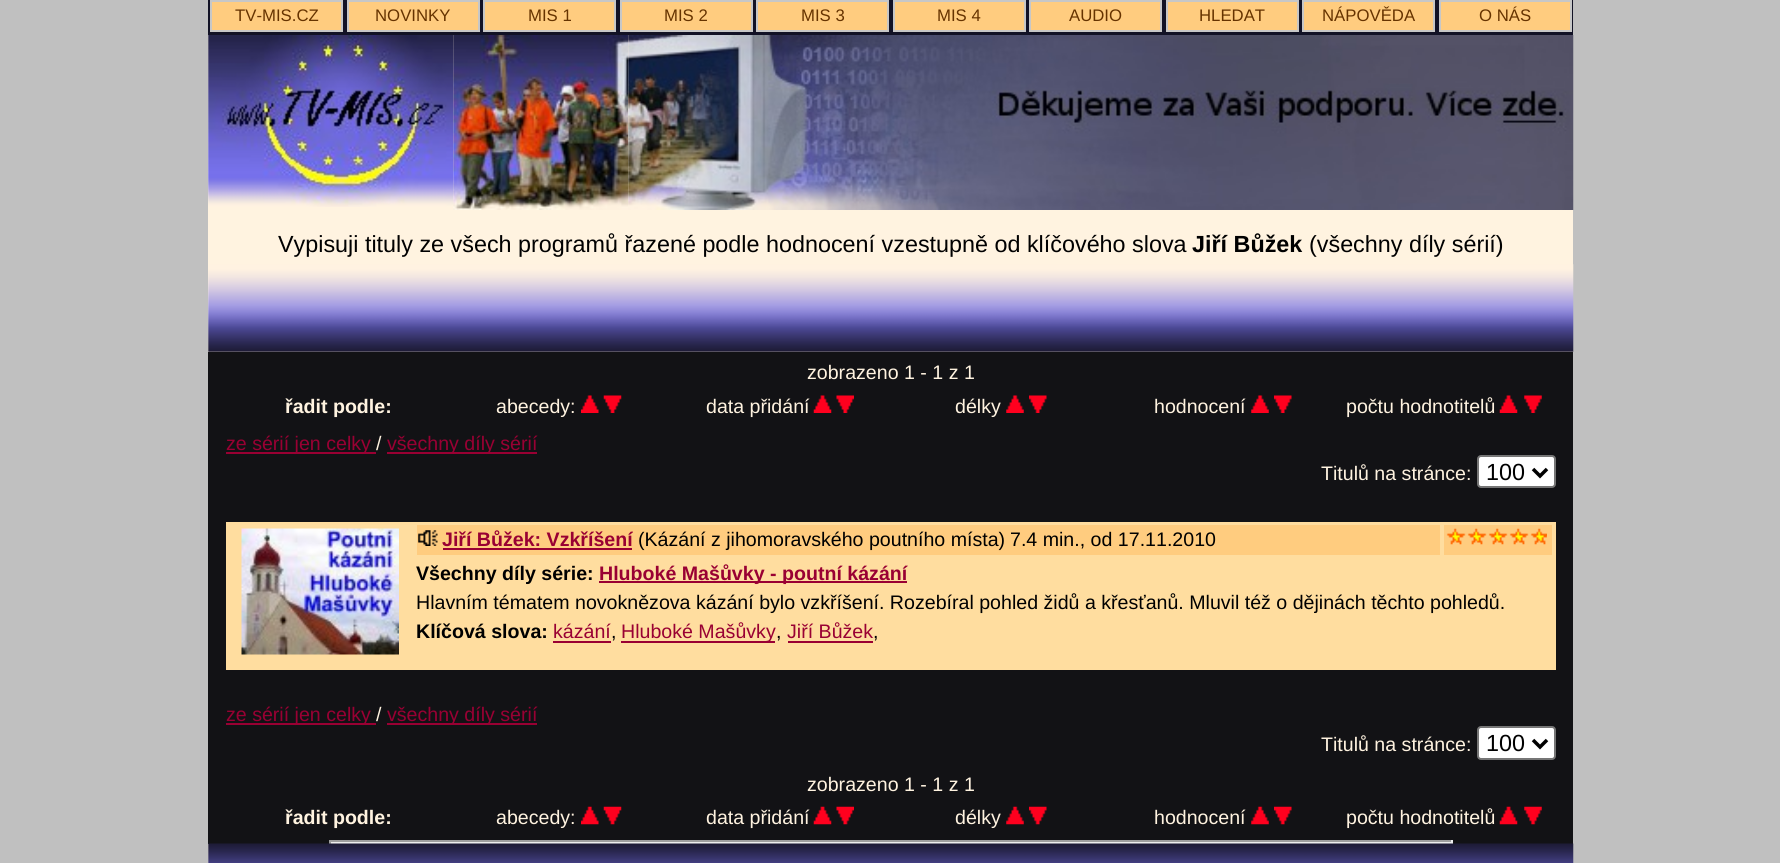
import math
import cairocffi as cairo

surface = cairo.ImageSurface(cairo.FORMAT_RGB24, 1780, 863)
ctx = cairo.Context(surface)
options = cairo.FontOptions()
options.set_hint_metrics(cairo.HINT_METRICS_OFF)
options.set_hint_style(cairo.HINT_STYLE_NONE)
ctx.set_font_options(options)
ctx.set_miter_limit(4)


def rgb(r, g, b):
    ctx.set_source_rgb(r / 255, g / 255, b / 255)


def face(family, size, italic, bold):
    ctx.select_font_face(family, cairo.FONT_SLANT_ITALIC if italic else cairo.FONT_SLANT_NORMAL, cairo.FONT_WEIGHT_BOLD if bold else cairo.FONT_WEIGHT_NORMAL)
    ctx.set_font_size(size)


def label(x, y, s):
    ctx.move_to(x, y)
    ctx.show_text(s)


def rect(x, y, w, h):
    ctx.rectangle(x, y, w, h)
    ctx.fill()


def rrect(x, y, w, h, r):
    ctx.new_sub_path()
    for i, (u, v) in enumerate([(x + w - r, y + h - r), (x + r, y + h - r), (x + r, y + r), (x + w - r, y + r)]):
        ctx.arc(u, v, r, i * math.pi / 2, (i + 1) * math.pi / 2)
    ctx.close_path()


def image(path, x, y, w, h):
    ctx.save()
    ctx.set_source_surface(cairo.ImageSurface.create_from_png(path), x, y)
    ctx.rectangle(x, y, w, h)
    ctx.fill()
    ctx.restore()


rgb(192, 192, 192)
ctx.paint()
rgb(255, 243, 224)
rect(208, 35, 1365, 828)
rgb(18, 18, 37)
rect(208, 0, 1365, 35)
rgb(255, 204, 127)
ctx.rectangle(211, 1, 131, 30)
ctx.fill_preserve()
rgb(199, 199, 199)
ctx.stroke()
face('Liberation Sans', 16.75, 0, 0)
rgb(102, 51, 0)
label(235, 21, 'TV-MIS.CZ')
rgb(255, 204, 127)
ctx.rectangle(348, 1, 131, 30)
ctx.fill_preserve()
rgb(199, 199, 199)
ctx.stroke()
rgb(102, 51, 0)
label(375, 21, 'NOVINKY')
rgb(255, 204, 127)
ctx.rectangle(484, 1, 131, 30)
ctx.fill_preserve()
rgb(199, 199, 199)
ctx.stroke()
rgb(102, 51, 0)
label(528, 21, 'MIS 1')
rgb(255, 204, 127)
ctx.rectangle(621, 1, 131, 30)
ctx.fill_preserve()
rgb(199, 199, 199)
ctx.stroke()
rgb(102, 51, 0)
label(664, 21, 'MIS 2')
rgb(255, 204, 127)
ctx.rectangle(757, 1, 131, 30)
ctx.fill_preserve()
rgb(199, 199, 199)
ctx.stroke()
rgb(102, 51, 0)
label(801, 21, 'MIS 3')
rgb(255, 204, 127)
ctx.rectangle(894, 1, 131, 30)
ctx.fill_preserve()
rgb(199, 199, 199)
ctx.stroke()
rgb(102, 51, 0)
label(937, 21, 'MIS 4')
rgb(255, 204, 127)
ctx.rectangle(1030, 1, 131, 30)
ctx.fill_preserve()
rgb(199, 199, 199)
ctx.stroke()
rgb(102, 51, 0)
label(1069, 21, 'AUDIO')
rgb(255, 204, 127)
ctx.rectangle(1167, 1, 131, 30)
ctx.fill_preserve()
rgb(199, 199, 199)
ctx.stroke()
rgb(102, 51, 0)
label(1199, 21, 'HLEDAT')
rgb(255, 204, 127)
ctx.rectangle(1303, 1, 131, 30)
ctx.fill_preserve()
rgb(199, 199, 199)
ctx.stroke()
rgb(102, 51, 0)
label(1322, 21, 'NÁPOVĚDA')
rgb(255, 204, 127)
ctx.rectangle(1440, 1, 131, 30)
ctx.fill_preserve()
rgb(199, 199, 199)
ctx.stroke()
rgb(102, 51, 0)
label(1479, 21, 'O NÁS')
image('image0.png', 208, 35, 246, 172)
image('image1.png', 453, 35, 176, 175)
image('image2.png', 628, 35, 946, 175)
face('Liberation Sans', 23.35, 0, 0)
rgb(0, 0, 0)
label(278, 252, 'Vypisuji tituly ze všech programů řazené podle hodnocení vzestupně od klíčového slova')
face('Liberation Sans', 23.35, 0, 1)
label(1192, 252, 'Jiří Bůžek')
face('Liberation Sans', 23.35, 0, 0)
label(1309, 252, '(všechny díly sérií)')
image('image3.png', 208, 264, 1366, 88)
rgb(18, 18, 21)
rect(208, 352, 1365, 492)
face('Liberation Sans', 19.6, 0, 0)
rgb(255, 243, 224)
label(807, 379, 'zobrazeno 1 - 1 z 1')
face('Liberation Sans', 19.6, 0, 1)
label(285, 413, 'řadit podle:')
face('Liberation Sans', 19.6, 0, 0)
label(496, 413, 'abecedy:')
image('image4.png', 581, 395, 18, 18)
image('image5.png', 603, 395, 19, 18)
label(706, 413, 'data přidání')
image('image6.png', 813, 395, 19, 18)
image('image7.png', 836, 395, 18, 18)
label(955, 413, 'délky')
image('image8.png', 1006, 395, 18, 18)
image('image9.png', 1029, 395, 18, 18)
label(1154, 413, 'hodnocení')
image('image10.png', 1251, 395, 18, 18)
image('image11.png', 1274, 395, 18, 18)
label(1346, 413, 'počtu hodnotitelů')
image('image6.png', 1499, 395, 19, 18)
image('image12.png', 1524, 395, 18, 18)
rgb(153, 0, 51)
rect(226, 452, 150, 2)
label(226, 450, 'ze sérií jen celky')
rgb(255, 243, 224)
label(376, 450, '/')
rgb(153, 0, 51)
rect(387, 452, 150, 2)
label(387, 450, 'všechny díly sérií')
rgb(255, 243, 224)
label(1321, 480, 'Titulů na stránce:')
rgb(255, 255, 255)
rrect(1478, 456, 77, 31, 3)
ctx.fill_preserve()
rgb(118, 118, 118)
ctx.stroke()
ctx.new_path()
ctx.move_to(1533, 469)
ctx.line_to(1540, 476)
ctx.line_to(1547, 469)
rgb(0, 0, 0)
ctx.set_line_width(3.5)
ctx.stroke()
face('Liberation Sans', 23.35, 0, 0)
label(1486, 480, '100')
rgb(255, 221, 159)
rect(226, 522, 1330, 148)
image('image13.png', 241, 528, 158, 127)
rgb(255, 204, 127)
rect(417, 525, 1023, 30)
image('image14.png', 418, 530, 20, 16)
face('Liberation Sans', 19.6, 0, 1)
rgb(153, 0, 51)
label(442, 546, 'Jiří Bůžek: Vzkříšení')
rect(443, 548, 189, 2)
face('Liberation Sans', 19.6, 0, 0)
rgb(0, 0, 0)
label(638, 546, '(Kázání z jihomoravského poutního místa)')
label(1010, 546, '7.4 min., od 17.11.2010')
rgb(255, 204, 127)
rect(1444, 525, 108, 30)
image('image15.png', 1446, 528, 101, 17)
face('Liberation Sans', 19.6, 0, 1)
rgb(0, 0, 0)
label(416, 580, 'Všechny díly série:')
rgb(153, 0, 51)
rect(599, 581, 308, 2)
label(599, 580, 'Hluboké Mašůvky - poutní kázání')
face('Liberation Sans', 19.6, 0, 0)
rgb(0, 0, 0)
label(416, 609, 'Hlavním tématem novoknězova kázání bylo vzkříšení. Rozebíral pohled židů a křesťanů. Mluvil též o dějinách těchto pohledů.')
face('Liberation Sans', 19.6, 0, 1)
label(416, 638, 'Klíčová slova:')
face('Liberation Sans', 19.6, 0, 0)
rgb(153, 0, 51)
label(553, 638, 'kázání')
rect(553, 641, 58, 2)
rgb(0, 0, 0)
label(611, 638, ',')
rgb(153, 0, 51)
rect(621, 641, 154, 2)
label(621, 638, 'Hluboké Mašůvky')
rgb(0, 0, 0)
label(776, 638, ',')
rgb(153, 0, 51)
label(787, 638, 'Jiří Bůžek')
rect(788, 641, 85, 2)
rgb(0, 0, 0)
label(873, 638, ',')
rgb(153, 0, 51)
rect(226, 723, 150, 2)
label(226, 721, 'ze sérií jen celky')
rgb(255, 243, 224)
label(376, 721, '/')
rgb(153, 0, 51)
rect(387, 723, 150, 2)
label(387, 721, 'všechny díly sérií')
rgb(255, 243, 224)
label(1321, 751, 'Titulů na stránce:')
rgb(255, 255, 255)
rrect(1478, 727, 77, 32, 3)
ctx.fill_preserve()
rgb(118, 118, 118)
ctx.set_line_width(2)
ctx.stroke()
ctx.new_path()
ctx.move_to(1533, 740)
ctx.line_to(1540, 747)
ctx.line_to(1547, 740)
rgb(0, 0, 0)
ctx.set_line_width(3.5)
ctx.stroke()
face('Liberation Sans', 23.35, 0, 0)
label(1486, 751, '100')
face('Liberation Sans', 19.6, 0, 0)
rgb(255, 243, 224)
label(807, 791, 'zobrazeno 1 - 1 z 1')
face('Liberation Sans', 19.6, 0, 1)
label(285, 824, 'řadit podle:')
face('Liberation Sans', 19.6, 0, 0)
label(496, 824, 'abecedy:')
image('image16.png', 581, 806, 18, 19)
image('image17.png', 603, 806, 19, 19)
label(706, 824, 'data přidání')
image('image18.png', 813, 806, 19, 19)
image('image19.png', 836, 806, 18, 19)
label(955, 824, 'délky')
image('image20.png', 1006, 806, 18, 19)
image('image21.png', 1029, 806, 18, 19)
label(1154, 824, 'hodnocení')
image('image22.png', 1251, 806, 18, 19)
image('image23.png', 1274, 806, 18, 19)
label(1346, 824, 'počtu hodnotitelů')
image('image18.png', 1499, 806, 19, 19)
image('image24.png', 1524, 806, 18, 19)
rgb(159, 159, 159)
rect(329, 840, 1124, 2)
rgb(238, 238, 238)
rect(1451, 840, 2, 4)
rect(329, 842, 1124, 2)
rgb(159, 159, 159)
rect(329, 840, 2, 4)
image('image25.png', 208, 843, 1366, 20)
surface.write_to_png('render.png')
